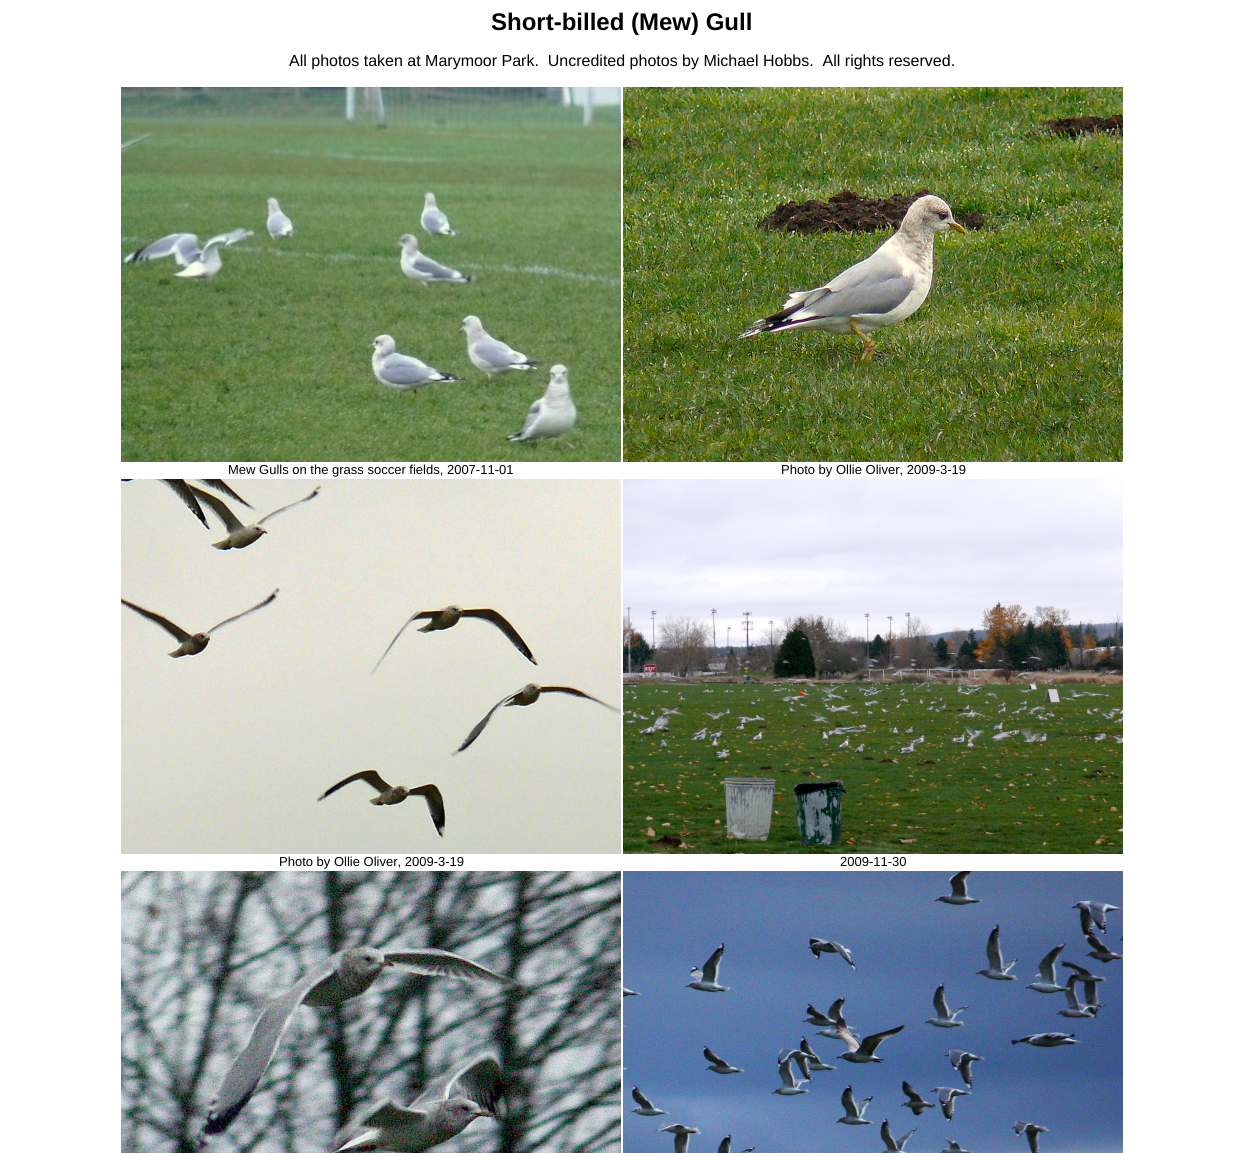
import math
import cairocffi as cairo

surface = cairo.ImageSurface(cairo.FORMAT_RGB24, 1244, 1153)
ctx = cairo.Context(surface)
options = cairo.FontOptions()
options.set_hint_metrics(cairo.HINT_METRICS_OFF)
options.set_hint_style(cairo.HINT_STYLE_NONE)
ctx.set_font_options(options)
ctx.set_miter_limit(4)


def rgb(r, g, b):
    ctx.set_source_rgb(r / 255, g / 255, b / 255)


def face(family, size, italic, bold):
    ctx.select_font_face(family, cairo.FONT_SLANT_ITALIC if italic else cairo.FONT_SLANT_NORMAL, cairo.FONT_WEIGHT_BOLD if bold else cairo.FONT_WEIGHT_NORMAL)
    ctx.set_font_size(size)


def label(x, y, s):
    ctx.move_to(x, y)
    ctx.show_text(s)


def image(path, x, y, w, h):
    ctx.save()
    ctx.set_source_surface(cairo.ImageSurface.create_from_png(path), x, y)
    ctx.rectangle(x, y, w, h)
    ctx.fill()
    ctx.restore()


rgb(255, 255, 255)
ctx.paint()
face('Liberation Sans', 24, 0, 1)
rgb(0, 0, 0)
label(491, 30, 'Short-billed (Mew) Gull')
face('Liberation Sans', 16, 0, 0)
label(289, 66, 'All photos taken at Marymoor Park.  Uncredited photos by Michael Hobbs.  All rights reserved.')
image('image0.png', 121, 87, 500, 375)
face('Liberation Sans', 13, 0, 0)
label(228, 474, 'Mew Gulls on the grass soccer fields, 2007-11-01')
image('image1.png', 623, 87, 500, 375)
label(781, 474, 'Photo by Ollie Oliver, 2009-3-19')
image('image2.png', 121, 479, 500, 375)
label(279, 866, 'Photo by Ollie Oliver, 2009-3-19')
image('image3.png', 623, 479, 500, 375)
label(840, 866, '2009-11-30')
image('image4.png', 121, 871, 500, 282)
image('image5.png', 623, 871, 500, 282)
surface.write_to_png('render.png')
